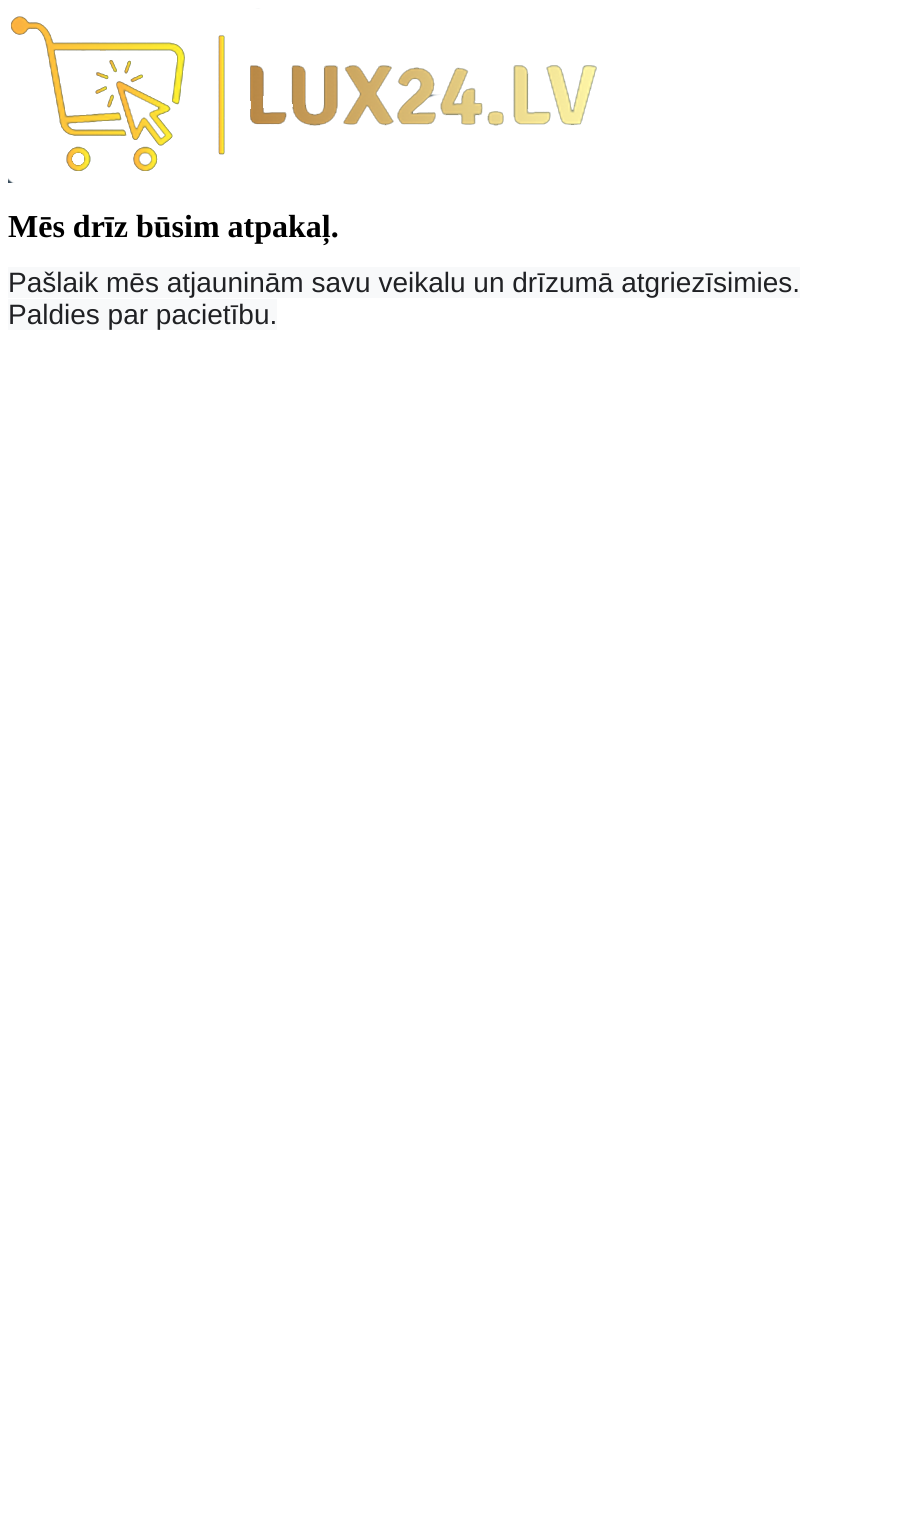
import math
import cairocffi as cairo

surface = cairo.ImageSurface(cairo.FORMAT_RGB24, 900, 1524)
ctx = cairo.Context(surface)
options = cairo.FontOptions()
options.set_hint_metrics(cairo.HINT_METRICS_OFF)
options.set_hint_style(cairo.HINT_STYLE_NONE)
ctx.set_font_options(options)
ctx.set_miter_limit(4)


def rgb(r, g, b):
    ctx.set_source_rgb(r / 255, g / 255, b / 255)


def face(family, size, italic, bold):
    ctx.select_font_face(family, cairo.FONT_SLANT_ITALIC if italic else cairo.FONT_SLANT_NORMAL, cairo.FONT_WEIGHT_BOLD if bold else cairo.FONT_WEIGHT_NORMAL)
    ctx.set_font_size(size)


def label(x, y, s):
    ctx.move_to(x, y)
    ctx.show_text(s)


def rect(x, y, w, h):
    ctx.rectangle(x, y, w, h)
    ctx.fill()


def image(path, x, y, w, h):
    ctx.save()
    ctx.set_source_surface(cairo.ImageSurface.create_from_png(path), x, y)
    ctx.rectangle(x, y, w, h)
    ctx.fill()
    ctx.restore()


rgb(255, 255, 255)
ctx.paint()
image('image0.png', 8, 8, 589, 175)
face('Liberation Serif', 32, 0, 1)
rgb(0, 0, 0)
label(8, 237, 'Mēs drīz būsim atpakaļ.')
rgb(248, 249, 250)
rect(8, 267, 792, 31)
face('Liberation Sans', 28, 0, 0)
rgb(32, 33, 36)
label(8, 292, 'Pašlaik mēs atjauninām savu veikalu un drīzumā atgriezīsimies.')
rgb(248, 249, 250)
rect(8, 299, 269, 31)
rgb(32, 33, 36)
label(8, 324, 'Paldies par pacietību.')
surface.write_to_png('render.png')
